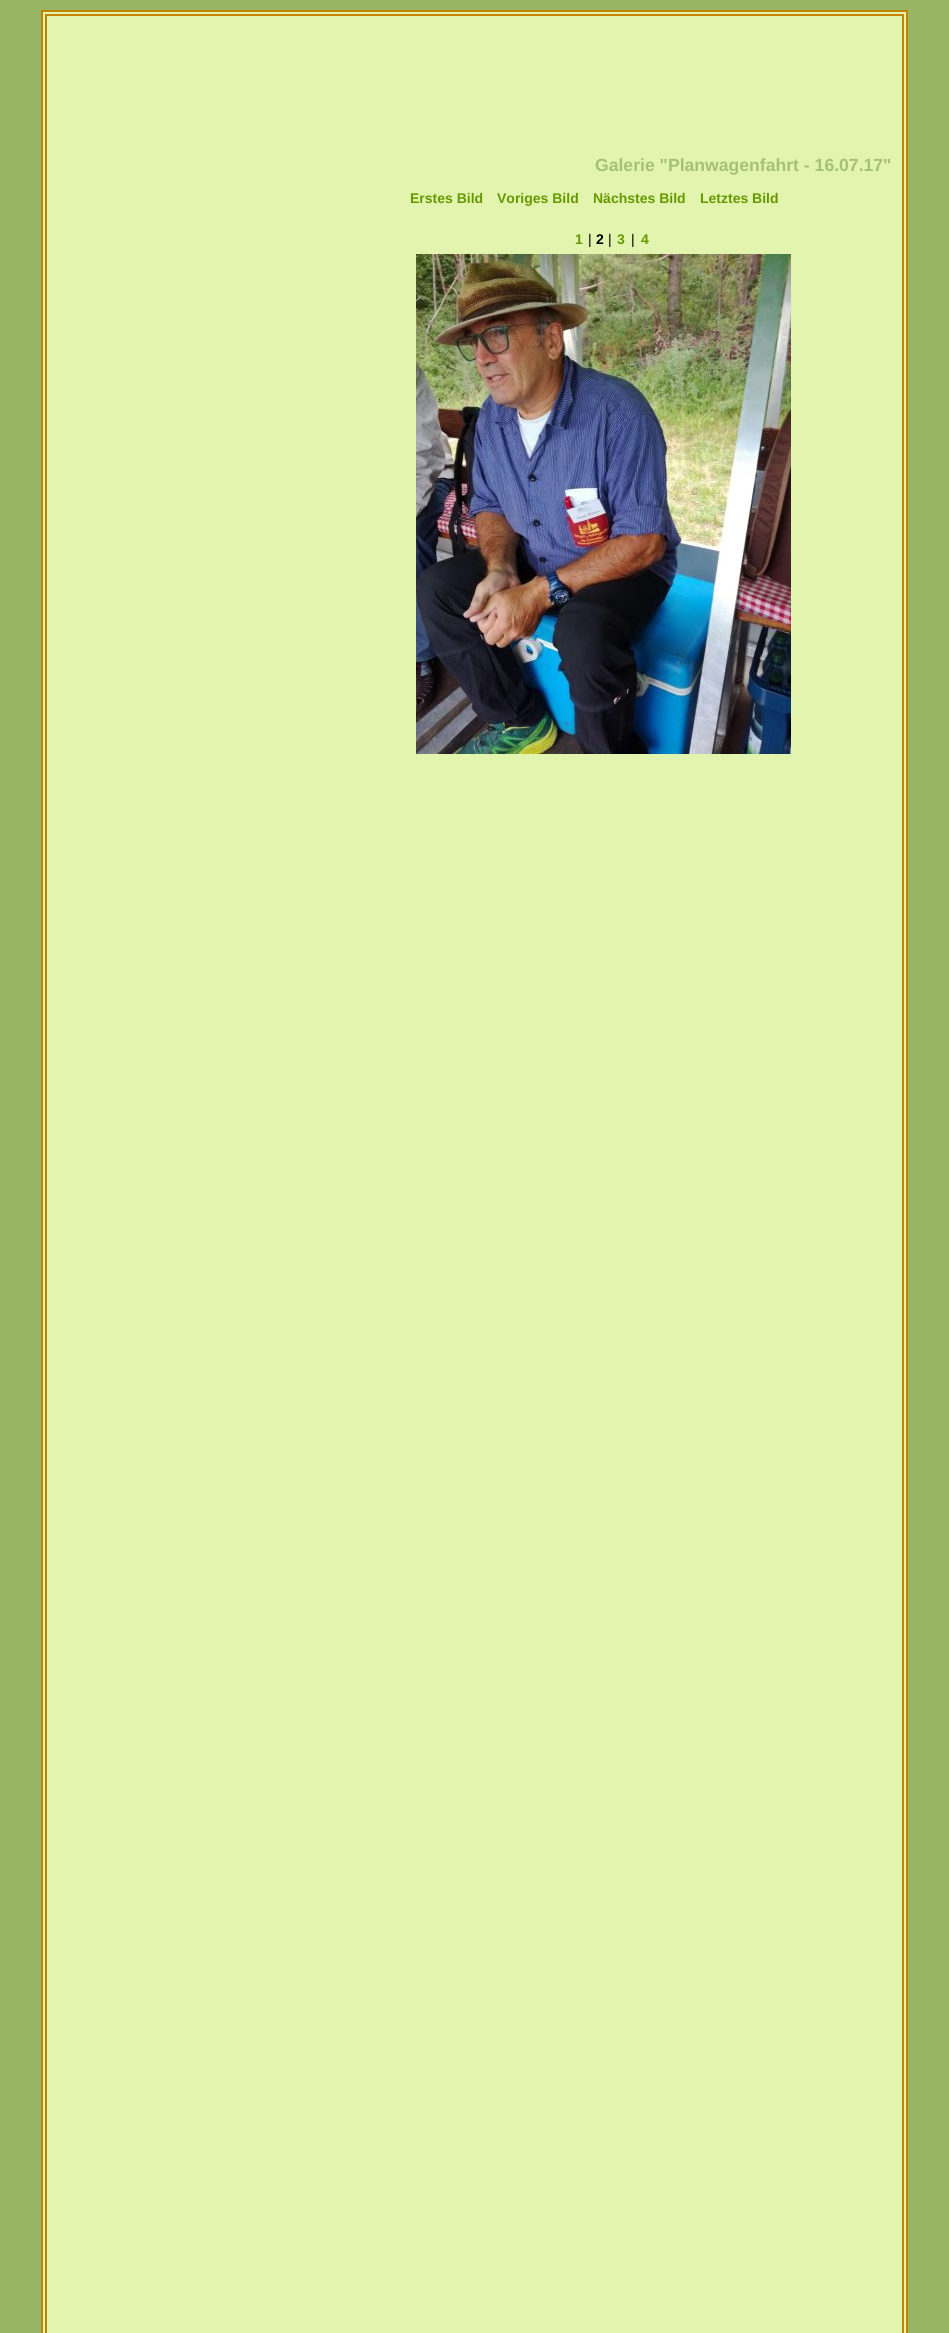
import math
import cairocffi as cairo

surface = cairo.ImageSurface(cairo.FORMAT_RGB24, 949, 2333)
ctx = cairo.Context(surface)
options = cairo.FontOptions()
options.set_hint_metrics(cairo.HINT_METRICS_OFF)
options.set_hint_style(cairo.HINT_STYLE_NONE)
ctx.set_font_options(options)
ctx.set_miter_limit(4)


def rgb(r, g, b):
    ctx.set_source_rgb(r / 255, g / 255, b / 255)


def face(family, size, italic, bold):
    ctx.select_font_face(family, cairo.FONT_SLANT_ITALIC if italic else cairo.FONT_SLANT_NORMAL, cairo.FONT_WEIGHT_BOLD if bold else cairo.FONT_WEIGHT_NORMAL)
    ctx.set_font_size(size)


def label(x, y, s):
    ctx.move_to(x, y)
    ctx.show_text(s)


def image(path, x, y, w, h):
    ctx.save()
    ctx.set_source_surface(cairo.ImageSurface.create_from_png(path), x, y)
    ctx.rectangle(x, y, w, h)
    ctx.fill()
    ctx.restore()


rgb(152, 181, 101)
ctx.paint()
rgb(226, 244, 174)
ctx.rectangle(42, 11, 865, 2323)
ctx.fill_preserve()
rgb(192, 132, 0)
ctx.stroke()
ctx.rectangle(46, 15, 857, 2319)
ctx.stroke()
face('Liberation Sans', 17.6, 0, 1)
rgb(165, 193, 116)
label(595, 171, 'Galerie "Planwagenfahrt - 16.07.17"')
face('Liberation Sans', 14, 0, 1)
rgb(102, 153, 0)
label(410, 203, 'Erstes Bild')
label(497, 203, 'Voriges Bild')
label(593, 203, 'Nächstes Bild')
label(700, 203, 'Letztes Bild')
label(575, 244, '1')
face('Liberation Sans', 14, 0, 0)
rgb(0, 0, 0)
label(588, 244, '|')
face('Liberation Sans', 14, 0, 1)
label(596, 244, '2')
face('Liberation Sans', 14, 0, 0)
label(608, 244, '|')
face('Liberation Sans', 14, 0, 1)
rgb(102, 153, 0)
label(617, 244, '3')
face('Liberation Sans', 14, 0, 0)
rgb(0, 0, 0)
label(631, 244, '|')
face('Liberation Sans', 14, 0, 1)
rgb(102, 153, 0)
label(641, 244, '4')
image('image0.png', 416, 254, 375, 500)
surface.write_to_png('render.png')
